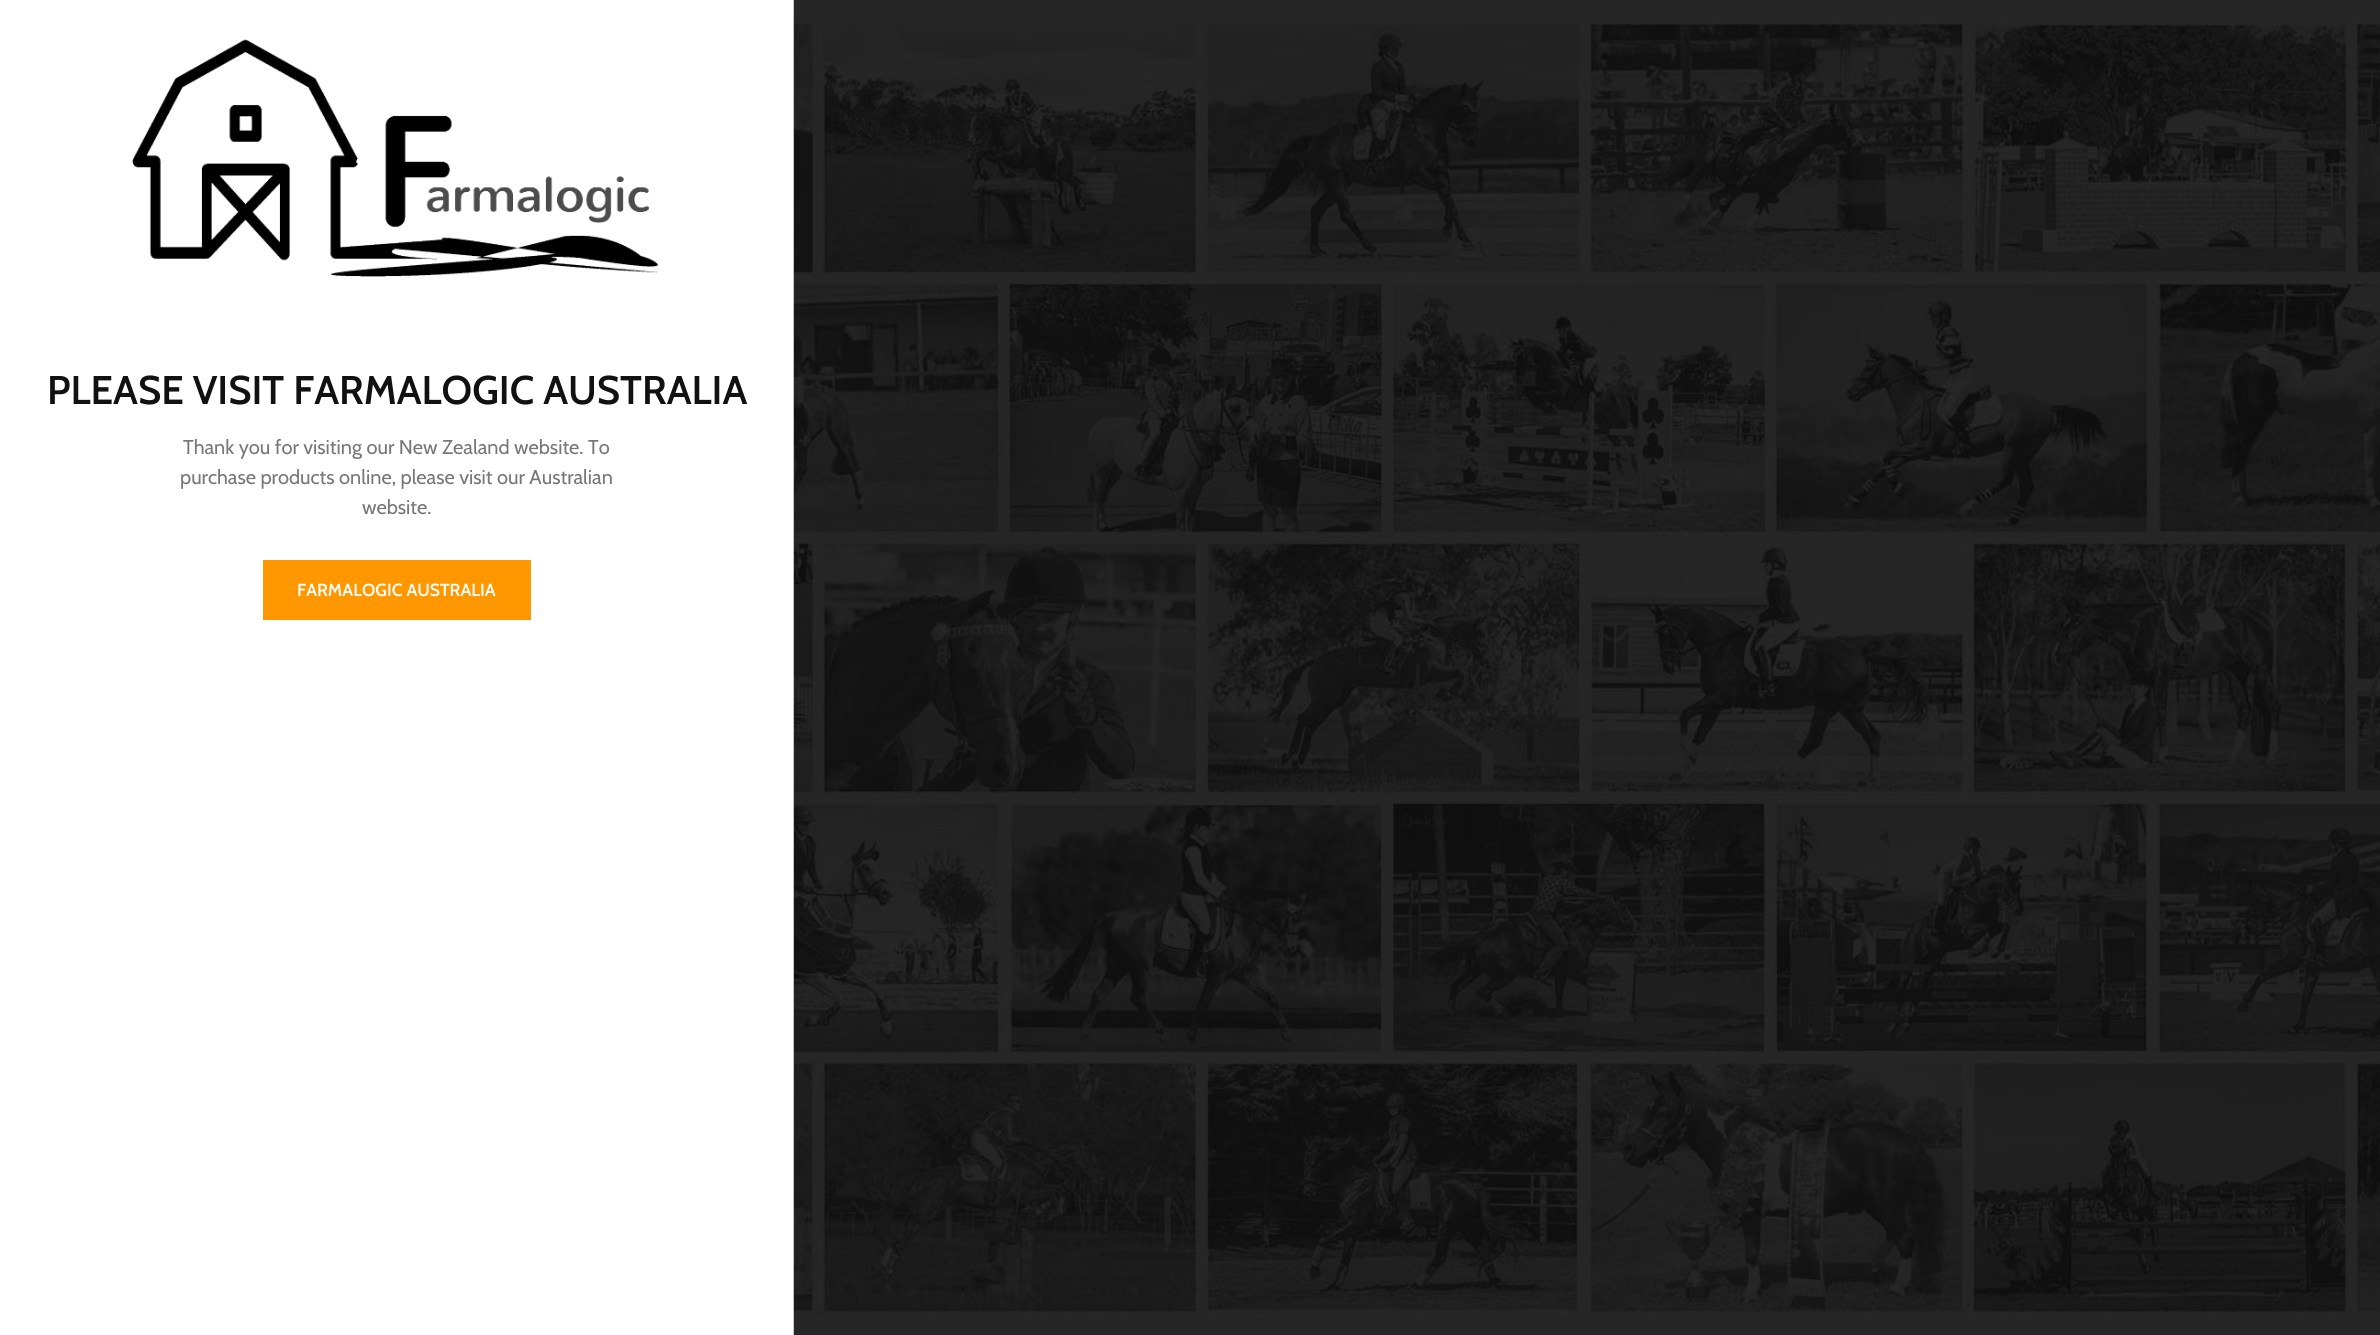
import math
import cairocffi as cairo

surface = cairo.ImageSurface(cairo.FORMAT_RGB24, 2380, 1335)
ctx = cairo.Context(surface)
options = cairo.FontOptions()
options.set_hint_metrics(cairo.HINT_METRICS_OFF)
options.set_hint_style(cairo.HINT_STYLE_NONE)
ctx.set_font_options(options)
ctx.set_miter_limit(4)


def rgb(r, g, b):
    ctx.set_source_rgb(r / 255, g / 255, b / 255)


def face(family, size, italic, bold):
    ctx.select_font_face(family, cairo.FONT_SLANT_ITALIC if italic else cairo.FONT_SLANT_NORMAL, cairo.FONT_WEIGHT_BOLD if bold else cairo.FONT_WEIGHT_NORMAL)
    ctx.set_font_size(size)


def label(x, y, s):
    ctx.move_to(x, y)
    ctx.show_text(s)


def rect(x, y, w, h):
    ctx.rectangle(x, y, w, h)
    ctx.fill()


def image(path, x, y, w, h):
    ctx.save()
    ctx.set_source_surface(cairo.ImageSurface.create_from_png(path), x, y)
    ctx.rectangle(x, y, w, h)
    ctx.fill()
    ctx.restore()


rgb(255, 255, 255)
ctx.paint()
image('image0.png', 132, 39, 526, 238)
face('Cabin SemiBold', 40, 0, 0)
rgb(17, 17, 17)
label(47, 404, 'PLEASE VISIT FARMALOGIC AUSTRALIA')
face('Cabin', 20, 0, 0)
rgb(119, 119, 119)
label(183, 454, 'Thank you for visiting our New Zealand website. To')
label(180, 484, 'purchase products online, please visit our Australian')
label(362, 514, 'website.')
rgb(255, 152, 0)
rect(263, 560, 268, 60)
face('Cabin SemiBold', 17.5, 0, 0)
rgb(255, 255, 255)
label(297, 596, 'FARMALOGIC AUSTRALIA')
image('image1.png', 793, 0, 1587, 1335)
surface.write_to_png('render.png')
